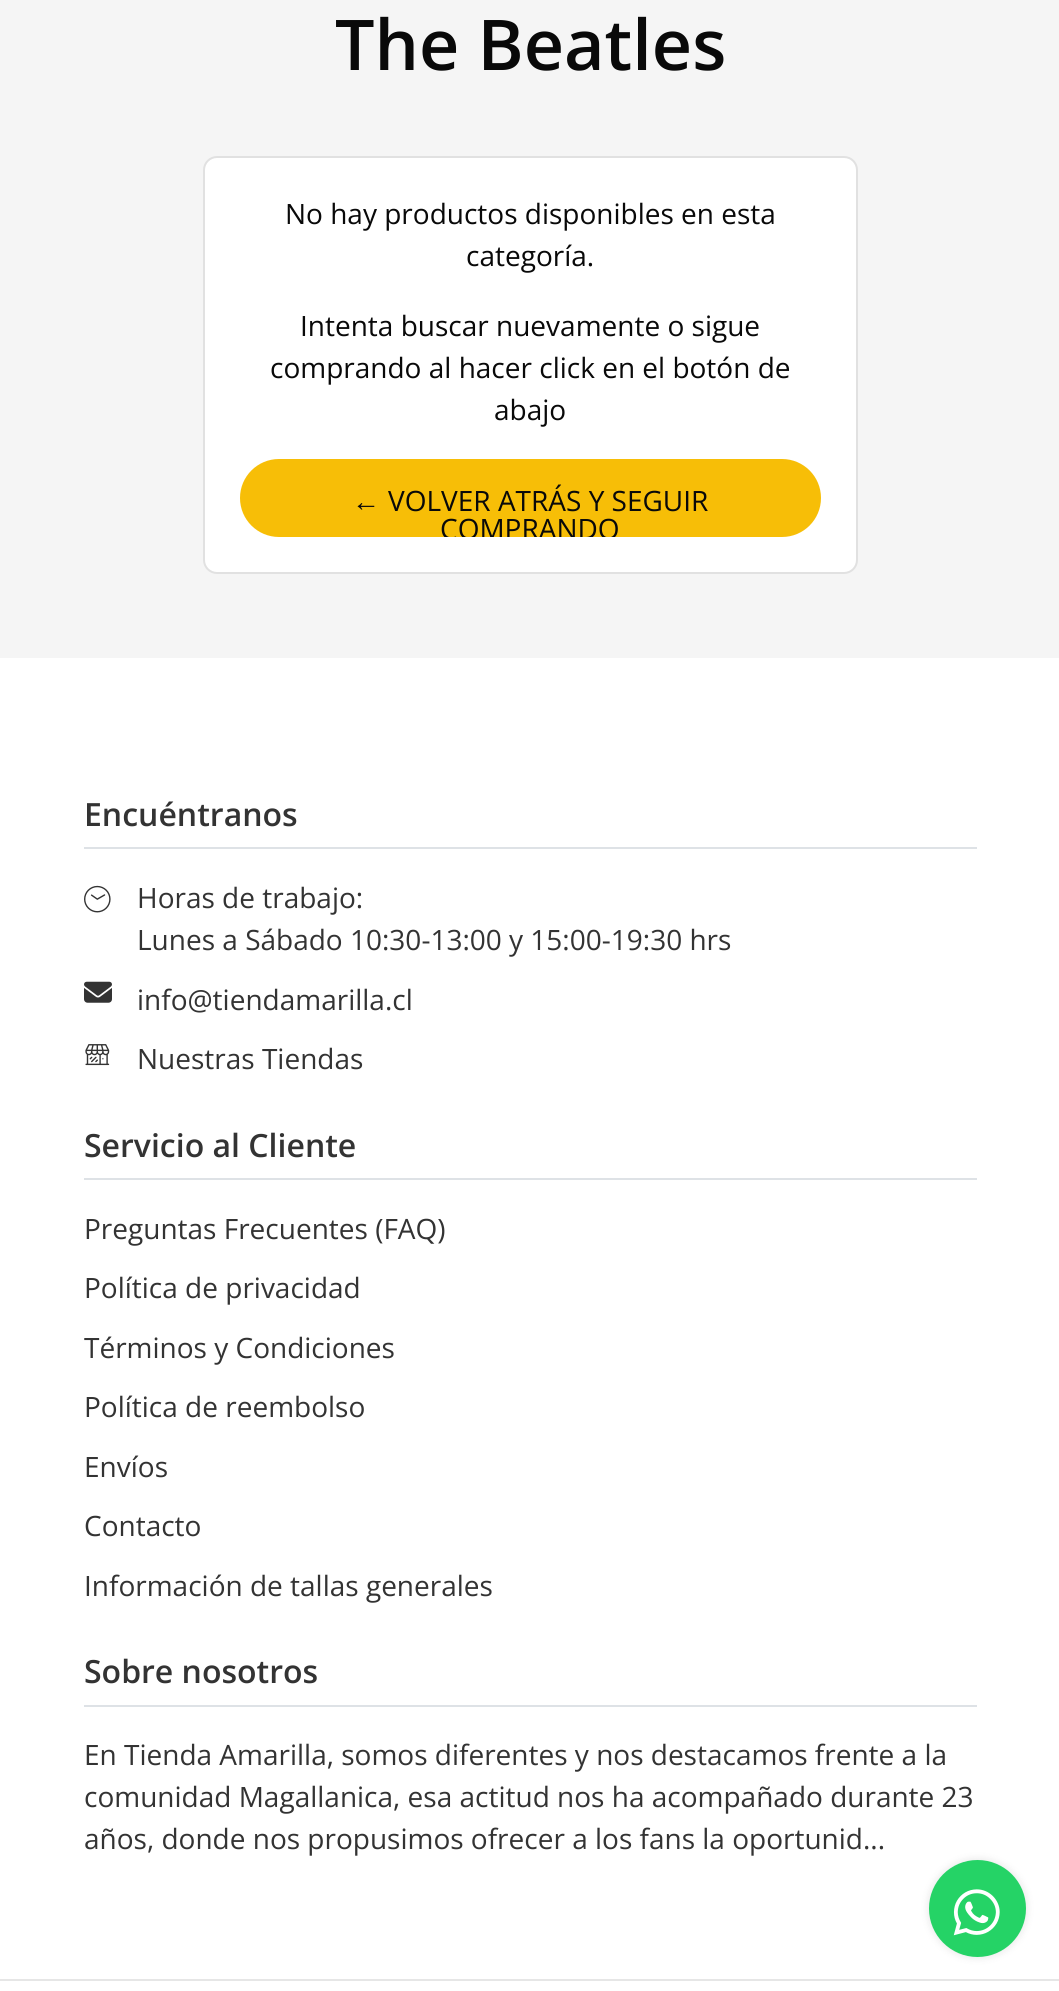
import math
import cairocffi as cairo

surface = cairo.ImageSurface(cairo.FORMAT_RGB24, 1059, 1991)
ctx = cairo.Context(surface)
options = cairo.FontOptions()
options.set_hint_metrics(cairo.HINT_METRICS_OFF)
options.set_hint_style(cairo.HINT_STYLE_NONE)
ctx.set_font_options(options)
ctx.set_miter_limit(4)


def rgb(r, g, b):
    ctx.set_source_rgb(r / 255, g / 255, b / 255)


def face(family, size, italic, bold):
    ctx.select_font_face(family, cairo.FONT_SLANT_ITALIC if italic else cairo.FONT_SLANT_NORMAL, cairo.FONT_WEIGHT_BOLD if bold else cairo.FONT_WEIGHT_NORMAL)
    ctx.set_font_size(size)


def label(x, y, s):
    ctx.move_to(x, y)
    ctx.show_text(s)


def rect(x, y, w, h):
    ctx.rectangle(x, y, w, h)
    ctx.fill()


def rrect(x, y, w, h, r):
    ctx.new_sub_path()
    for i, (u, v) in enumerate([(x + w - r, y + h - r), (x + r, y + h - r), (x + r, y + r), (x + w - r, y + r)]):
        ctx.arc(u, v, r, i * math.pi / 2, (i + 1) * math.pi / 2)
    ctx.close_path()


def soft_shadow(x, y, w, h, r, blur, alpha):
    ctx.push_group_with_content(cairo.CONTENT_ALPHA)
    ctx.set_operator(cairo.OPERATOR_SOURCE)
    for i in range(15, -16, -2):
        e = blur * i / 6
        if min(w, h) + 2 * e > 0:
            ctx.set_source_rgba(0, 0, 0, alpha * math.erfc((i - 1) / 8.5) / 2)
            rrect(x - e, y - e, w + 2 * e, h + 2 * e, max(0, min(r + e + blur * .6, min(w, h) / 2 + e)))
            ctx.fill()
    ctx.mask(ctx.pop_group())


def image(path, x, y, w, h):
    ctx.save()
    ctx.set_source_surface(cairo.ImageSurface.create_from_png(path), x, y)
    ctx.rectangle(x, y, w, h)
    ctx.fill()
    ctx.restore()


rgb(255, 255, 255)
ctx.paint()
rgb(245, 245, 245)
rect(0, 0, 1059, 658)
face('Open Sans SemiBold', 70, 0, 0)
rgb(9, 9, 9)
label(335, 70, 'The Beatles')
rgb(255, 255, 255)
rrect(203, 156, 655, 418, 14)
ctx.fill()
rrect(204, 157, 653, 416, 13)
ctx.set_source_rgba(0, 0, 0, 0.12)
ctx.stroke()
face('Open Sans', 28, 0, 0)
rgb(9, 9, 9)
label(285, 224, 'No hay productos disponibles en esta')
label(466, 266, 'categoría.')
label(300, 336, 'Intenta buscar nuevamente o sigue')
label(270, 378, 'comprando al hacer click en el botón de')
label(494, 420, 'abajo')
rgb(247, 190, 7)
rrect(240, 459, 581, 78, 39)
ctx.fill()
face('Liberation Serif', 28, 0, 0)
rgb(9, 9, 9)
label(352, 511, '←')
face('Open Sans', 28, 0, 0)
label(388, 511, 'VOLVER ATRÁS Y SEGUIR')
ctx.save()
rrect(240, 459, 581, 78, 39)
ctx.clip()
label(440, 539, 'COMPRANDO')
ctx.restore()
rgb(222, 226, 230)
rect(84, 847, 893, 2)
face('Open Sans SemiBold', 32, 0, 0)
rgb(51, 51, 51)
label(84, 826, 'Encuéntranos')
image('image0.png', 84, 885, 27, 28)
face('Open Sans', 28, 0, 0)
label(137, 908, 'Horas de trabajo:')
label(137, 950, 'Lunes a Sábado 10:30-13:00 y 15:00-19:30 hrs')
image('image1.png', 84, 981, 28, 22)
label(137, 1010, 'info@tiendamarilla.cl')
image('image2.png', 85, 1044, 25, 22)
label(137, 1069, 'Nuestras Tiendas')
rgb(222, 226, 230)
rect(84, 1178, 893, 2)
face('Open Sans SemiBold', 32, 0, 0)
rgb(51, 51, 51)
label(84, 1157, 'Servicio al Cliente')
face('Open Sans', 28, 0, 0)
label(84, 1239, 'Preguntas Frecuentes (FAQ)')
label(84, 1298, 'Política de privacidad')
label(84, 1358, 'Términos y Condiciones')
label(84, 1417, 'Política de reembolso')
label(84, 1477, 'Envíos')
label(84, 1536, 'Contacto')
label(84, 1596, 'Información de tallas generales')
rgb(222, 226, 230)
rect(84, 1705, 893, 2)
face('Open Sans SemiBold', 32, 0, 0)
rgb(51, 51, 51)
label(84, 1683, 'Sobre nosotros')
face('Open Sans', 28, 0, 0)
label(84, 1765, 'En Tienda Amarilla, somos diferentes y nos destacamos frente a la')
label(84, 1807, 'comunidad Magallanica, esa actitud nos ha acompañado durante 23')
label(84, 1849, 'años, donde nos propusimos ofrecer a los fans la oportunid...')
rgb(230, 230, 230)
rect(0, 1979, 1059, 2)
rgb(0, 0, 0)
soft_shadow(929, 1860, 97, 97, 48.5, 4.5, 0.11)
rgb(37, 211, 102)
ctx.arc(977.5, 1908.5, 48.5, 0, 2 * math.pi)
ctx.fill()
image('image3.png', 953, 1889, 47, 47)
surface.write_to_png('render.png')
